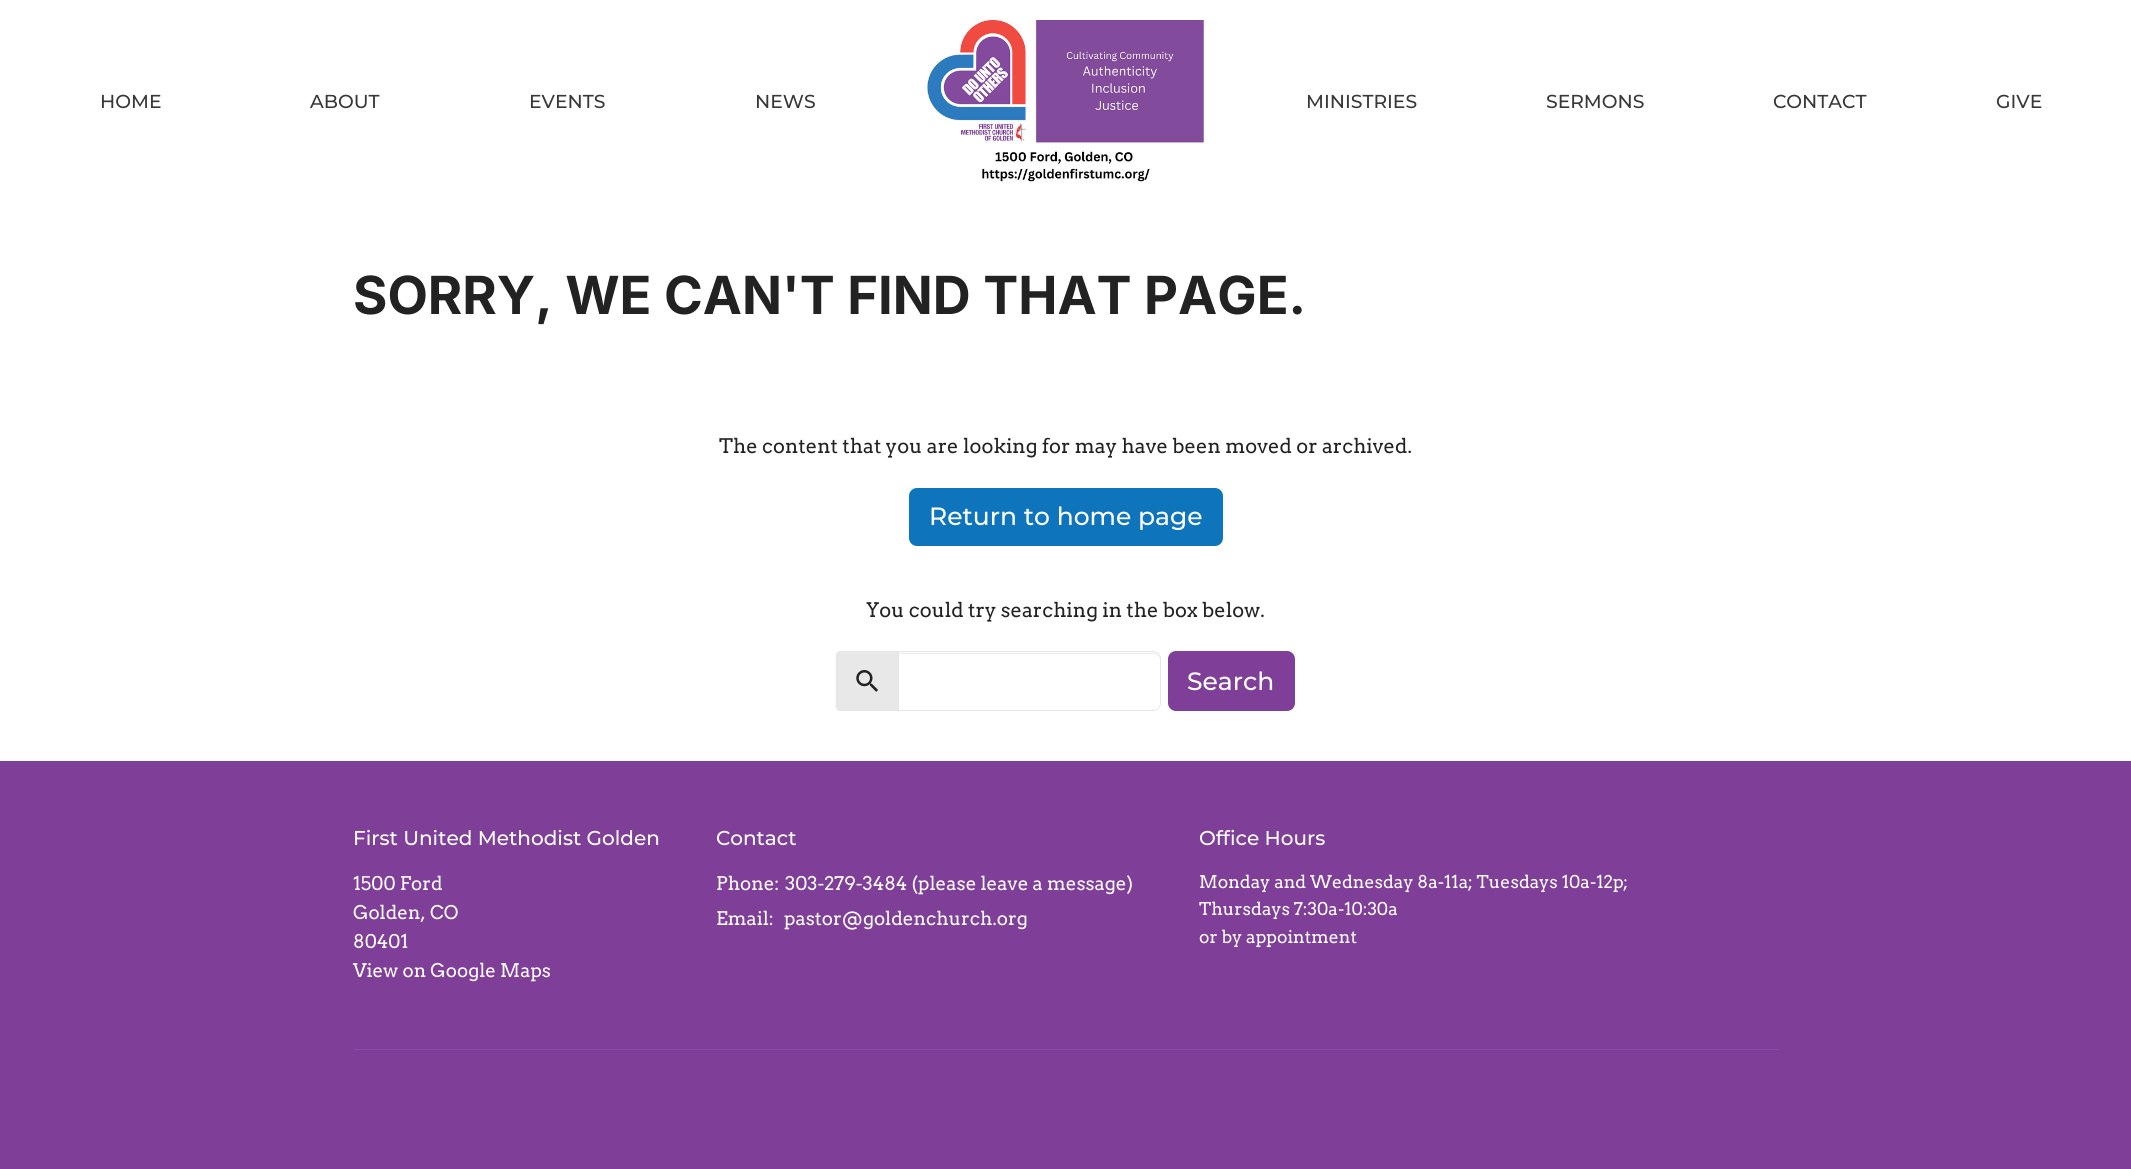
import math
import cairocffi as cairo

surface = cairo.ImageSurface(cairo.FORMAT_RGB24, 2131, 1169)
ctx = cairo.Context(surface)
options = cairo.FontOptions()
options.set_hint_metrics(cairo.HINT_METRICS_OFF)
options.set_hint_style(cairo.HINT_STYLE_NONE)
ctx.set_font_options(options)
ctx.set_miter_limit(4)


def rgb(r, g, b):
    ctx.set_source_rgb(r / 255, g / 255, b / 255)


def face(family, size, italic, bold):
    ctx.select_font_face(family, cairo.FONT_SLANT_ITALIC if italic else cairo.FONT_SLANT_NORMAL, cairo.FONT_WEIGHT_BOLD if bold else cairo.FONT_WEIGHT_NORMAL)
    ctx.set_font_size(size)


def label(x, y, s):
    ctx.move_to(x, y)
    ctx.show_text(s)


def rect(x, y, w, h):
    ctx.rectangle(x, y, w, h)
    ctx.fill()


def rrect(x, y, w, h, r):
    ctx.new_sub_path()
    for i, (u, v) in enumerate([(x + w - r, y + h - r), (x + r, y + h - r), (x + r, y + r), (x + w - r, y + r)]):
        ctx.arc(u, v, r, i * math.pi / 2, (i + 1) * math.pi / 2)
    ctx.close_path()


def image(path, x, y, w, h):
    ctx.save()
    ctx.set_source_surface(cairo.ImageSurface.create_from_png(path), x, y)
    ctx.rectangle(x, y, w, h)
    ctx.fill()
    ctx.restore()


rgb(255, 255, 255)
ctx.paint()
face('Montserrat Medium', 18.75, 0, 0)
rgb(56, 56, 56)
label(100, 108, 'HOME')
label(310, 108, 'ABOUT')
label(529, 108, 'EVENTS')
label(755, 108, 'NEWS')
image('image0.png', 927, 20, 277, 162)
label(1306, 108, 'MINISTRIES')
label(1546, 108, 'SERMONS')
label(1773, 108, 'CONTACT')
label(1996, 108, 'GIVE')
face('Inter', 52.5, 0, 1)
rgb(34, 34, 34)
label(353, 314, 'SORRY, WE CAN\'T FIND THAT PAGE.')
face('Arvo', 20, 0, 0)
label(719, 453, 'The content that you are looking for may have been moved or archived.')
rgb(14, 117, 189)
rrect(909, 488, 314, 58, 8)
ctx.fill()
face('Montserrat Medium', 25, 0, 0)
rgb(255, 255, 255)
label(929, 525, 'Return to home page')
face('Arvo', 20, 0, 0)
rgb(34, 34, 34)
label(866, 617, 'You could try searching in the box below.')
rgb(232, 232, 232)
ctx.new_path()
ctx.move_to(841, 651)
ctx.line_to(898, 651)
ctx.line_to(898, 711)
ctx.line_to(841, 711)
ctx.curve_to(838, 711, 836, 709, 836, 706)
ctx.line_to(836, 656)
ctx.curve_to(836, 653, 838, 651, 841, 651)
ctx.close_path()
ctx.fill()
rgb(230, 230, 230)
ctx.set_fill_rule(cairo.FILL_RULE_EVEN_ODD)
ctx.new_path()
ctx.move_to(841, 651)
ctx.line_to(898, 651)
ctx.line_to(898, 711)
ctx.line_to(841, 711)
ctx.curve_to(838, 711, 836, 709, 836, 706)
ctx.line_to(836, 656)
ctx.curve_to(836, 653, 838, 651, 841, 651)
ctx.close_path()
ctx.move_to(841, 652)
ctx.line_to(898, 652)
ctx.line_to(898, 710)
ctx.line_to(841, 710)
ctx.curve_to(839, 710, 838, 708, 838, 706)
ctx.line_to(838, 656)
ctx.curve_to(838, 654, 839, 652, 841, 652)
ctx.close_path()
ctx.fill()
image('image1.png', 856, 670, 22, 22)
rgb(236, 236, 236)
ctx.set_fill_rule(cairo.FILL_RULE_WINDING)
ctx.new_path()
ctx.move_to(899, 654)
ctx.line_to(1154, 654)
ctx.curve_to(1157, 654, 1160, 657, 1160, 660)
ctx.curve_to(1160, 656, 1158, 653, 1154, 653)
ctx.line_to(899, 653)
ctx.close_path()
ctx.fill()
ctx.new_path()
ctx.move_to(898.5, 651.5)
ctx.line_to(1153, 651.5)
ctx.curve_to(1157, 651.5, 1160.5, 655, 1160.5, 659)
ctx.line_to(1160.5, 703)
ctx.curve_to(1160.5, 707, 1157, 710.5, 1153, 710.5)
ctx.line_to(898.5, 710.5)
ctx.close_path()
rgb(230, 230, 230)
ctx.set_line_width(1)
ctx.stroke()
rgb(127, 63, 152)
rrect(1168, 651, 127, 60, 8)
ctx.fill()
face('Montserrat Medium', 25, 0, 0)
rgb(255, 255, 255)
label(1187, 690, 'Search')
rgb(127, 63, 152)
rect(0, 761, 2131, 408)
face('Montserrat Medium', 20, 0, 0)
rgb(255, 255, 255)
label(353, 845, 'First United Methodist Golden')
face('Arvo', 18.75, 0, 0)
label(353, 890, '1500 Ford')
label(353, 919, 'Golden, CO')
label(353, 948, '80401')
label(353, 977, 'View on Google Maps')
face('Montserrat Medium', 20, 0, 0)
label(716, 845, 'Contact')
face('Arvo', 18.75, 0, 0)
label(716, 890, 'Phone:')
label(785, 890, '303-279-3484 (please leave a message)')
label(716, 925, 'Email:')
label(784, 925, 'pastor@goldenchurch.org')
face('Montserrat Medium', 20, 0, 0)
label(1199, 845, 'Office Hours')
face('Arvo', 17.5, 0, 0)
label(1199, 888, 'Monday and Wednesday 8a-11a; Tuesdays 10a-12p;')
label(1199, 915, 'Thursdays 7:30a-10:30a')
label(1199, 943, 'or by appointment')
rgb(145, 72, 174)
rect(354, 1049, 1425, 1)
surface.write_to_png('render.png')
